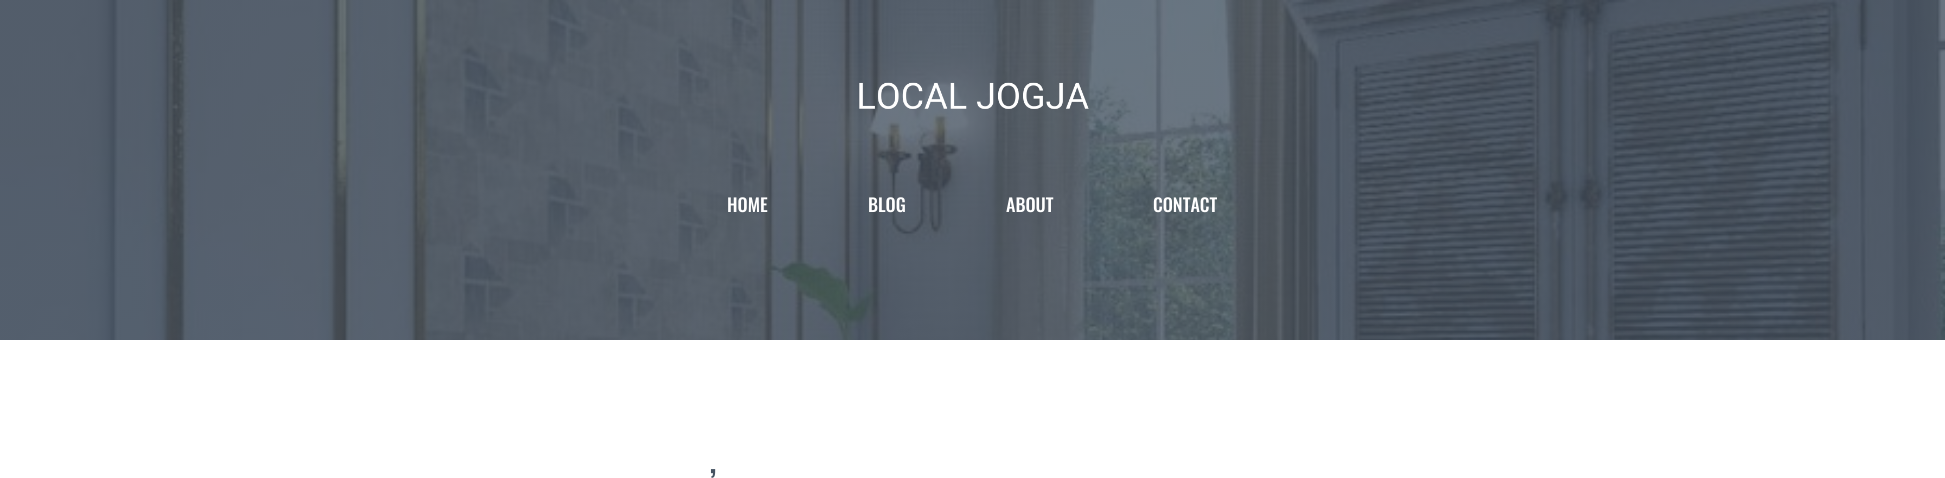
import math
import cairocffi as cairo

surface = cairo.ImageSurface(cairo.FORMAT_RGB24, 1945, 478)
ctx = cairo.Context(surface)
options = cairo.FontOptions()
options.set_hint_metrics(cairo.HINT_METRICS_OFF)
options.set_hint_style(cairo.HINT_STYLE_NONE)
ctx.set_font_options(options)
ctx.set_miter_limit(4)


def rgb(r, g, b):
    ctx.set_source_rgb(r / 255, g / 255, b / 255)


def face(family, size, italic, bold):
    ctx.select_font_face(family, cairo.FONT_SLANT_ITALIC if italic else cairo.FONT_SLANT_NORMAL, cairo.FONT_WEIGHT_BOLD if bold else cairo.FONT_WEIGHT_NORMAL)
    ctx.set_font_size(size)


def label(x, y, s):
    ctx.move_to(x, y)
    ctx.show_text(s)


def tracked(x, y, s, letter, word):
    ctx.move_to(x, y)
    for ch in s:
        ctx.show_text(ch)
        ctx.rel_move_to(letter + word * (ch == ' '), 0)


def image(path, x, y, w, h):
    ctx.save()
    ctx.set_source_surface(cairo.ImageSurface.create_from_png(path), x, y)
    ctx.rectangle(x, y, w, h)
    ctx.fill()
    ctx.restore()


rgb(255, 255, 255)
ctx.paint()
image('image0.png', 0, 0, 1945, 340)
image('image1.png', 859, 82, 230, 27)
face('Oswald Medium', 18, 0, 0)
rgb(255, 255, 255)
label(727, 212, 'HOME')
label(868, 212, 'BLOG')
label(1006, 212, 'ABOUT')
label(1153, 212, 'CONTACT')
face('Oswald Medium', 32, 0, 0)
rgb(70, 83, 98)
tracked(710, 495, '’', 2, 0)
surface.write_to_png('render.png')
